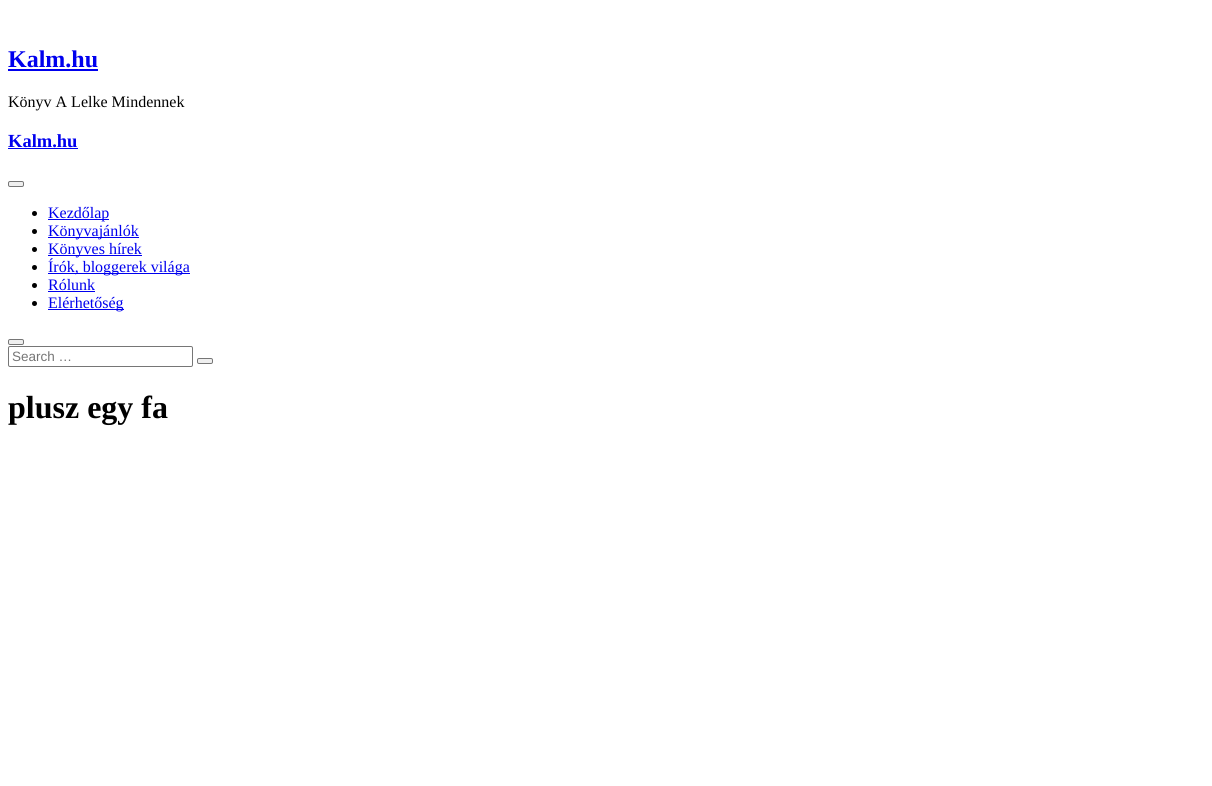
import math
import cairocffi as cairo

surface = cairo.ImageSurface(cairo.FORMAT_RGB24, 1212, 786)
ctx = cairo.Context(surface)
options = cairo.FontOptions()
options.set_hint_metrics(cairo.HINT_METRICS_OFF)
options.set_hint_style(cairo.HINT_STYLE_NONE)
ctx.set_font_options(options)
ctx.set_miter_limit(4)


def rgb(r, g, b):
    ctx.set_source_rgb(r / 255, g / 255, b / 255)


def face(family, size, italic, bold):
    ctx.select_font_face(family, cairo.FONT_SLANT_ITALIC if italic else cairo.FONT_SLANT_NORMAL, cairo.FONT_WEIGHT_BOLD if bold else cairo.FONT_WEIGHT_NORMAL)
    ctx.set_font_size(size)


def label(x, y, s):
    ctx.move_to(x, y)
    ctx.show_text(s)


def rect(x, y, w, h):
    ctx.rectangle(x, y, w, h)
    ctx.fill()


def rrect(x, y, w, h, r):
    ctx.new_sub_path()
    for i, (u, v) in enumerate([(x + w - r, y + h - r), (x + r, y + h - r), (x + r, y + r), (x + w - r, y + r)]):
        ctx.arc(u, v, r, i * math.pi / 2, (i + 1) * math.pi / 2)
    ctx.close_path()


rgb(255, 255, 255)
ctx.paint()
face('Liberation Serif', 24, 0, 1)
rgb(0, 0, 238)
label(8, 67, 'Kalm.hu')
rect(8, 69, 90, 2)
face('Liberation Serif', 16, 0, 0)
rgb(0, 0, 0)
label(8, 107, 'Könyv A Lelke Mindennek')
face('Liberation Serif', 18.5, 0, 1)
rgb(0, 0, 238)
label(8, 147, 'Kalm.hu')
rect(8, 148, 70, 1)
rgb(239, 239, 239)
rrect(8.5, 181.5, 15, 5, 1.5)
ctx.fill_preserve()
rgb(118, 118, 118)
ctx.set_line_width(1)
ctx.stroke()
rgb(0, 0, 0)
ctx.arc(34.5, 213.5, 2.5, 0, 2 * math.pi)
ctx.fill()
rgb(0, 0, 238)
rect(48, 219, 61, 1)
face('Liberation Serif', 16, 0, 0)
label(48, 218, 'Kezdőlap')
rgb(0, 0, 0)
ctx.new_path()
ctx.arc(34.5, 231.5, 2.5, 0, 2 * math.pi)
ctx.fill()
rgb(0, 0, 238)
rect(48, 237, 91, 1)
label(48, 236, 'Könyvajánlók')
rgb(0, 0, 0)
ctx.new_path()
ctx.arc(34.5, 249.5, 2.5, 0, 2 * math.pi)
ctx.fill()
rgb(0, 0, 238)
rect(48, 255, 94, 1)
label(48, 254, 'Könyves hírek')
rgb(0, 0, 0)
ctx.new_path()
ctx.arc(34.5, 267.5, 2.5, 0, 2 * math.pi)
ctx.fill()
rgb(0, 0, 238)
rect(48, 273, 142, 1)
label(48, 272, 'Írók, bloggerek világa')
rgb(0, 0, 0)
ctx.new_path()
ctx.arc(34.5, 285.5, 2.5, 0, 2 * math.pi)
ctx.fill()
rgb(0, 0, 238)
label(48, 290, 'Rólunk')
rect(48, 291, 47, 1)
rgb(0, 0, 0)
ctx.new_path()
ctx.arc(34.5, 303.5, 2.5, 0, 2 * math.pi)
ctx.fill()
rgb(0, 0, 238)
rect(48, 309, 76, 1)
label(48, 308, 'Elérhetőség')
rgb(239, 239, 239)
rrect(8.5, 339.5, 15, 5, 1.5)
ctx.fill_preserve()
rgb(118, 118, 118)
ctx.stroke()
rrect(8.5, 346.5, 184, 20, 1.5)
ctx.stroke()
face('Liberation Sans', 13.5, 0, 0)
rgb(117, 117, 117)
label(12, 361, 'Search …')
rgb(239, 239, 239)
rrect(197.5, 358.5, 15, 5, 1.5)
ctx.fill_preserve()
rgb(118, 118, 118)
ctx.stroke()
face('Liberation Serif', 32, 0, 1)
rgb(0, 0, 0)
label(8, 418, 'plusz egy fa')
surface.write_to_png('render.png')
